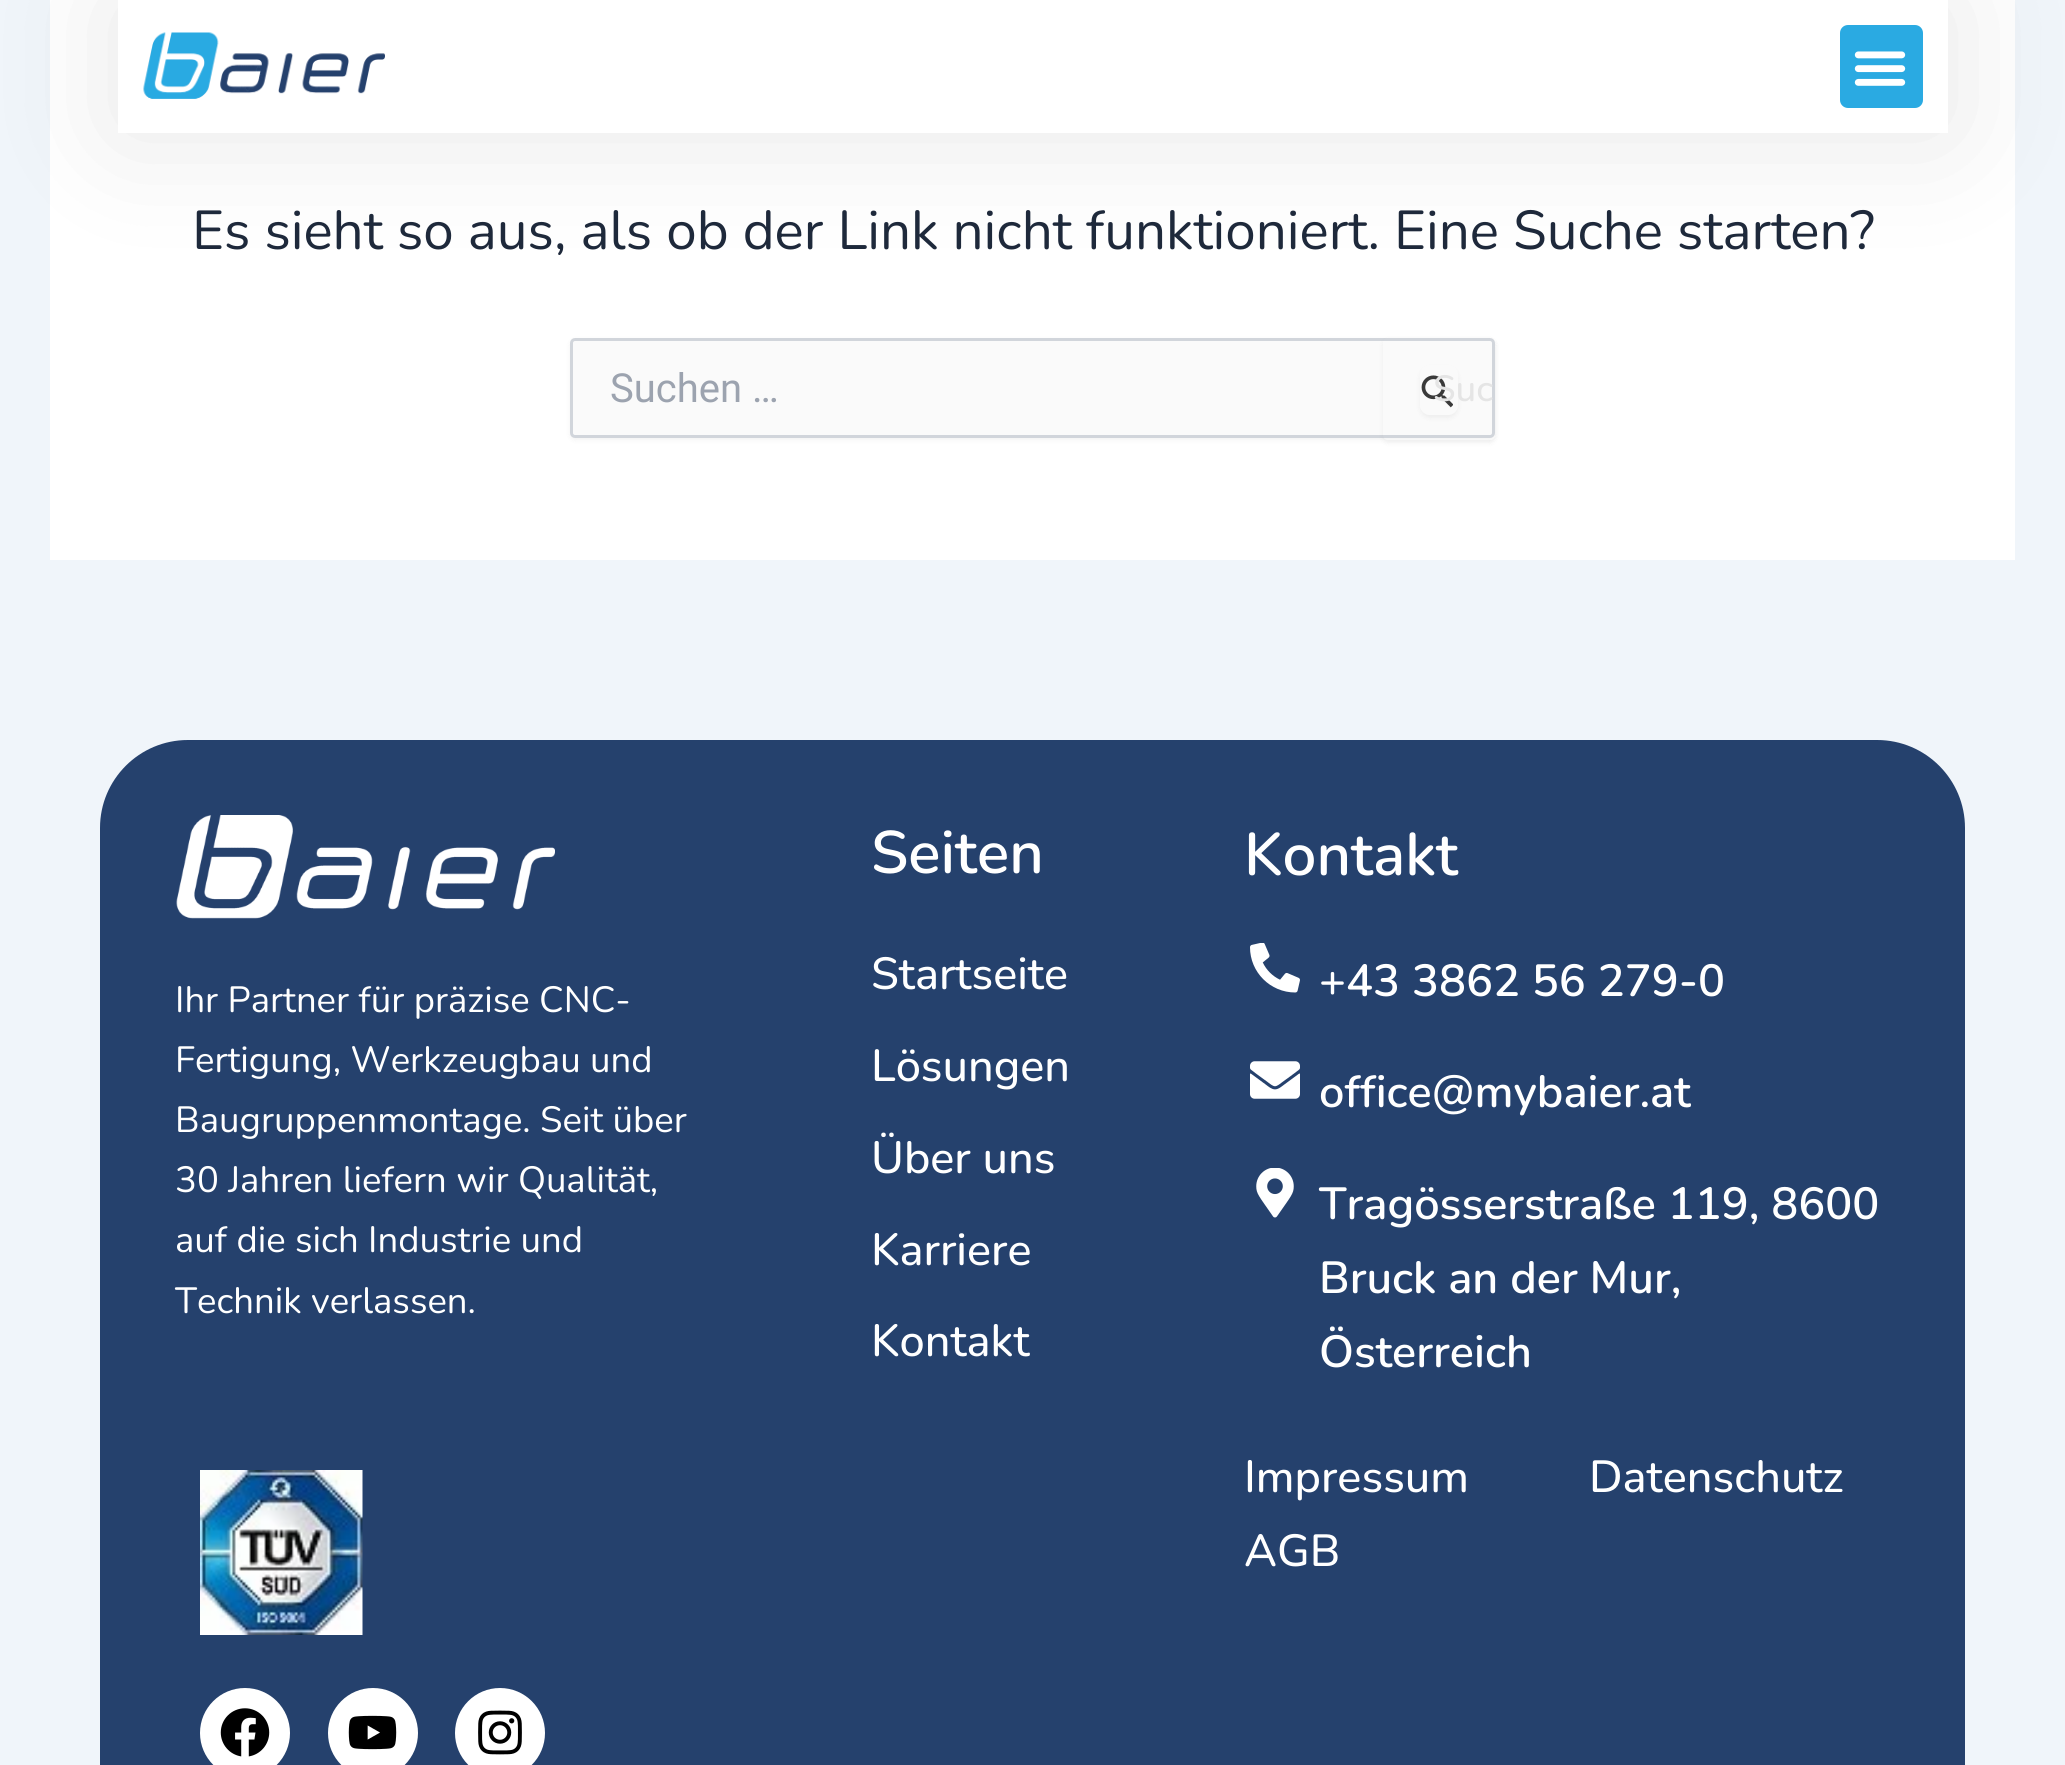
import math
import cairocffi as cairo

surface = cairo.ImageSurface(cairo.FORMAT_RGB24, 2065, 1765)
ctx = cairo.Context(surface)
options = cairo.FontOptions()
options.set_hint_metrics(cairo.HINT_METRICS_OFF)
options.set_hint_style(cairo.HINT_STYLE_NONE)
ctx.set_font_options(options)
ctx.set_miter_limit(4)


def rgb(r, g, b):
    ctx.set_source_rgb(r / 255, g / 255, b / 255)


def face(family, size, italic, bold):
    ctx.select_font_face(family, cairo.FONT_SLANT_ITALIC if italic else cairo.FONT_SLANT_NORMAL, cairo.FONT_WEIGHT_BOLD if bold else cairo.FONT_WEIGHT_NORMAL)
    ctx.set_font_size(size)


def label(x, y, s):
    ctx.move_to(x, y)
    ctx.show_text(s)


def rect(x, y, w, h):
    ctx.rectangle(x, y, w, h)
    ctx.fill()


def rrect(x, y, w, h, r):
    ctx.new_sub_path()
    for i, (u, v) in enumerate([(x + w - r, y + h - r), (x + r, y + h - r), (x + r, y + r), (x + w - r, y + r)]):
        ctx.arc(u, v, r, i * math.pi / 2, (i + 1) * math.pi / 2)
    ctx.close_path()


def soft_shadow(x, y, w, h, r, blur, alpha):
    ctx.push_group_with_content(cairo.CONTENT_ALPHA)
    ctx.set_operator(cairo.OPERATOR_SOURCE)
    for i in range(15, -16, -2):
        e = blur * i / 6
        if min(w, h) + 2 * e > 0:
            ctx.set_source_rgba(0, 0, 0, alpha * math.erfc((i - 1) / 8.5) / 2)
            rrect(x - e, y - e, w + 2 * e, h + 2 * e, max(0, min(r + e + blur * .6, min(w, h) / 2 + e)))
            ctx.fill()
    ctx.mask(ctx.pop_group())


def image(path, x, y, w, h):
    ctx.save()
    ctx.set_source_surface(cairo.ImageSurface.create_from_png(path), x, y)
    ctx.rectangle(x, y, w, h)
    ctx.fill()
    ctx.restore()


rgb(240, 245, 250)
ctx.paint()
rgb(255, 255, 255)
rect(50, 0, 1965, 560)
rgb(0, 0, 0)
soft_shadow(118, 0, 1830, 133, 0, 62.5, 0.1)
rgb(255, 255, 255)
rect(118, 0, 1830, 133)
image('image0.png', 143, 32, 242, 67)
rgb(42, 170, 226)
rrect(1840, 25, 83, 83, 8)
ctx.fill()
image('image1.png', 1854, 51, 52, 35)
face('Nunito', 54.75, 0, 0)
rgb(30, 41, 59)
label(192, 249, 'Es sieht so aus, als ob der Link nicht funktioniert. Eine Suche starten?')
rgb(0, 0, 0)
soft_shadow(570, 340, 925, 100, 5, 2.5, 0.05)
rgb(250, 250, 250)
rrect(571.5, 339.5, 922, 97, 3.5)
ctx.fill_preserve()
rgb(209, 213, 219)
ctx.set_line_width(3)
ctx.stroke()
face('Roboto', 40, 0, 0)
rgb(156, 163, 175)
label(610, 402, 'Suchen …')
ctx.save()
ctx.set_fill_rule(cairo.FILL_RULE_EVEN_ODD)
ctx.new_path()
ctx.move_to(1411, 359)
ctx.line_to(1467, 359)
ctx.line_to(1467, 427)
ctx.line_to(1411, 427)
ctx.close_path()
ctx.move_to(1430, 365)
ctx.line_to(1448, 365)
ctx.curve_to(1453.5, 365, 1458, 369.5, 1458, 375)
ctx.line_to(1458, 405)
ctx.curve_to(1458, 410.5, 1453.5, 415, 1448, 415)
ctx.line_to(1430, 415)
ctx.curve_to(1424.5, 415, 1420, 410.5, 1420, 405)
ctx.line_to(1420, 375)
ctx.curve_to(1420, 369.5, 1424.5, 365, 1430, 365)
ctx.close_path()
ctx.clip()
rgb(0, 0, 0)
soft_shadow(1420, 368, 38, 50, 10, 2.5, 0.05)
ctx.restore()
image('image2.png', 1421, 375, 32, 33)
ctx.save()
ctx.set_fill_rule(cairo.FILL_RULE_EVEN_ODD)
ctx.new_path()
ctx.move_to(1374, 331)
ctx.line_to(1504, 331)
ctx.line_to(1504, 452)
ctx.line_to(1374, 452)
ctx.close_path()
ctx.move_to(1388, 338)
ctx.line_to(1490, 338)
ctx.curve_to(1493, 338, 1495, 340, 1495, 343)
ctx.line_to(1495, 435)
ctx.curve_to(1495, 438, 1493, 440, 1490, 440)
ctx.line_to(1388, 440)
ctx.curve_to(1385, 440, 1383, 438, 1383, 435)
ctx.line_to(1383, 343)
ctx.curve_to(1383, 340, 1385, 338, 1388, 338)
ctx.close_path()
ctx.clip()
rgb(0, 0, 0)
soft_shadow(1383, 340, 112, 103, 5, 2.5, 0.05)
ctx.restore()
face('Nunito Medium', 36.5, 0, 0)
rgb(229, 229, 229)
label(1433, 401, 'Suc')
rgb(37, 65, 109)
rrect(100, 740, 1865, 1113, 88)
ctx.fill()
image('image3.png', 176, 815, 379, 104)
face('Nunito', 36.5, 0, 0)
rgb(255, 255, 255)
label(175, 1012, 'Ihr Partner für präzise CNC-')
label(175, 1072, 'Fertigung, Werkzeugbau und')
label(175, 1132, 'Baugruppenmontage. Seit über')
label(175, 1192, '30 Jahren liefern wir Qualität,')
label(175, 1252, 'auf die sich Industrie und')
label(175, 1313, 'Technik verlassen.')
image('image4.png', 200, 1470, 163, 165)
ctx.arc(245, 1733, 45, 0, 2 * math.pi)
ctx.fill()
image('image5.png', 220, 1708, 50, 49)
ctx.arc(373, 1733, 45, 0, 2 * math.pi)
ctx.fill()
image('image6.png', 348, 1715, 49, 35)
ctx.arc(500, 1733, 45, 0, 2 * math.pi)
ctx.fill()
image('image7.png', 478, 1710, 44, 45)
face('Nunito SemiBold', 60, 0, 0)
label(871, 873, 'Seiten')
face('Nunito Medium', 45, 0, 0)
label(871, 989, 'Startseite')
label(871, 1081, 'Lösungen')
label(871, 1173, 'Über uns')
label(871, 1265, 'Karriere')
label(871, 1356, 'Kontakt')
face('Nunito SemiBold', 60, 0, 0)
label(1244, 875, 'Kontakt')
image('image8.png', 1250, 943, 50, 50)
face('Nunito SemiBold', 45, 0, 0)
label(1319, 996, '+43 3862 56 279-0')
image('image9.png', 1250, 1061, 50, 38)
label(1319, 1107, 'office@mybaier.at')
image('image10.png', 1256, 1168, 38, 50)
label(1319, 1219, 'Tragösserstraße 119, 8600')
label(1319, 1293, 'Bruck an der Mur,')
label(1319, 1367, 'Österreich')
face('Nunito Medium', 45, 0, 0)
label(1244, 1492, 'Impressum')
label(1589, 1492, 'Datenschutz')
label(1244, 1566, 'AGB')
surface.write_to_png('render.png')
